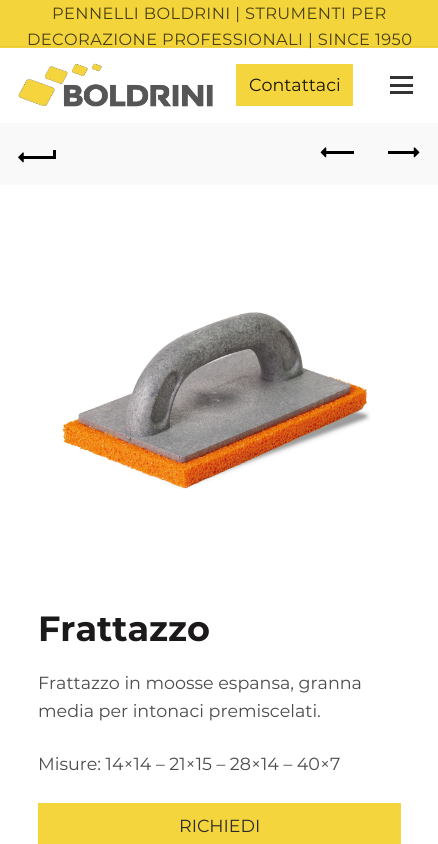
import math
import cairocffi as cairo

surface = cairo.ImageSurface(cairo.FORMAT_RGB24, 438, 844)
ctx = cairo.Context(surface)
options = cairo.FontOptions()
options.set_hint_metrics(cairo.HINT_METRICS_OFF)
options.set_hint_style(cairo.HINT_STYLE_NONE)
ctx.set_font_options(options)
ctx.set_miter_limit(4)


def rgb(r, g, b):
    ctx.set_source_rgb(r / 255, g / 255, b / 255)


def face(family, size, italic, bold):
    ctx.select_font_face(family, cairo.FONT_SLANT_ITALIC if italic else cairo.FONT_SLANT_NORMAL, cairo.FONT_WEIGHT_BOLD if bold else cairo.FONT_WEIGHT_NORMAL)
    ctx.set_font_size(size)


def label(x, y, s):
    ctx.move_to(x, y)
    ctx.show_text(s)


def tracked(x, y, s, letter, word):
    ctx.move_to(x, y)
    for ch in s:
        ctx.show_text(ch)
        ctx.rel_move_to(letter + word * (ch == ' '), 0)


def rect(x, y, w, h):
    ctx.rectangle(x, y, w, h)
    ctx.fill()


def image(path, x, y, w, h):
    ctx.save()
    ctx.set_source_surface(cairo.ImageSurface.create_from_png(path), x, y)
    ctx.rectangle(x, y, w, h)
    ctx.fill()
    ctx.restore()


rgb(255, 255, 255)
ctx.paint()
rgb(244, 212, 59)
rect(0, 0, 438, 48)
rgb(232, 201, 56)
rect(0, 46, 438, 1)
face('Montserrat', 16.25, 0, 0)
rgb(73, 64, 18)
tracked(52, 19, 'PENNELLI BOLDRINI | STRUMENTI PER', 0.4, 0)
tracked(27, 45, 'DECORAZIONE PROFESSIONALI | SINCE 1950', 0.4, 0)
image('image0.png', 18, 63, 195, 44)
rgb(245, 213, 61)
rect(236, 64, 117, 42)
face('Montserrat', 17.5, 0, 0)
rgb(25, 21, 6)
label(249, 91, 'Contattaci')
rgb(51, 51, 51)
rect(390, 84, 23, 3)
rect(390, 76, 23, 3)
rect(390, 91, 23, 3)
rgb(249, 249, 249)
rect(0, 123, 438, 62)
rgb(0, 0, 0)
rect(23, 156, 31, 3)
image('image1.png', 18, 152, 6, 11)
rect(53, 150, 3, 9)
rect(325, 151, 29, 3)
image('image2.png', 320, 147, 7, 11)
rect(388, 151, 28, 3)
image('image3.png', 413, 147, 7, 11)
image('image4.png', 61, 312, 310, 177)
face('Montserrat', 35, 0, 1)
rgb(27, 25, 25)
label(38, 641, 'Frattazzo')
face('Montserrat', 17.5, 0, 0)
rgb(76, 76, 76)
label(38, 689, 'Frattazzo in moosse espansa, granna')
label(38, 717, 'media per intonaci premiscelati.')
label(38, 770, 'Misure: 14×14 – 21×15 – 28×14 – 40×7')
rgb(245, 213, 61)
rect(38, 803, 363, 41)
rgb(42, 42, 42)
label(179, 832, 'RICHIEDI')
surface.write_to_png('render.png')
